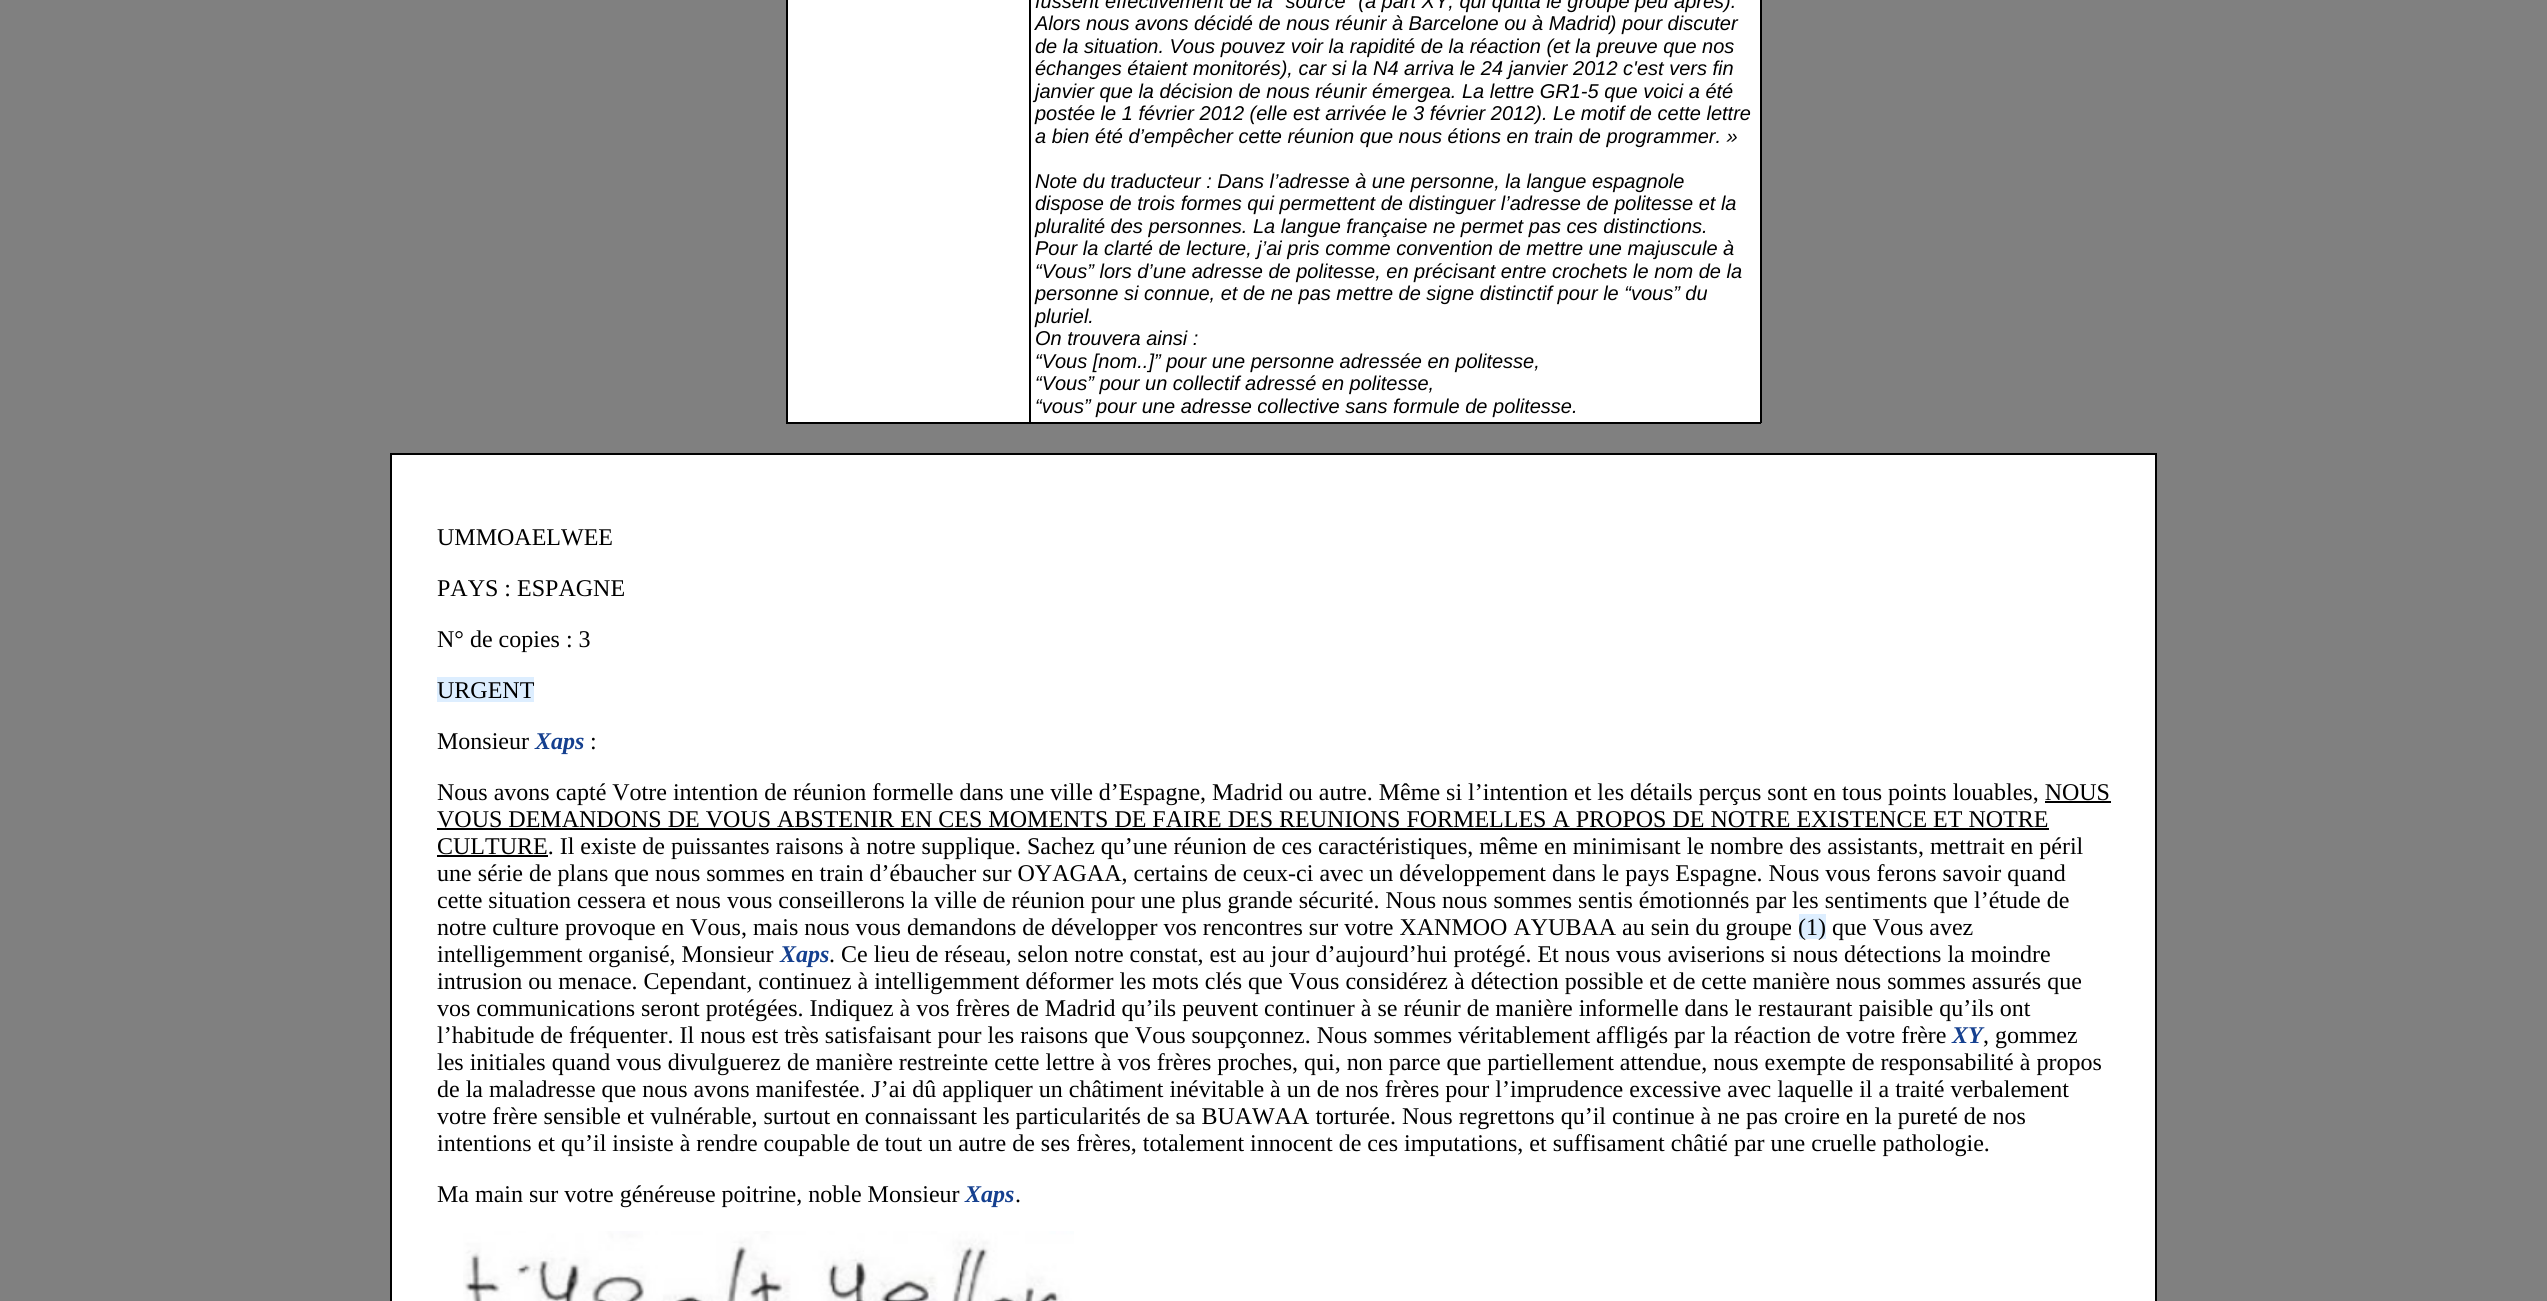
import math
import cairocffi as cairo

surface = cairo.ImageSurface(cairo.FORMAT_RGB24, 2547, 1301)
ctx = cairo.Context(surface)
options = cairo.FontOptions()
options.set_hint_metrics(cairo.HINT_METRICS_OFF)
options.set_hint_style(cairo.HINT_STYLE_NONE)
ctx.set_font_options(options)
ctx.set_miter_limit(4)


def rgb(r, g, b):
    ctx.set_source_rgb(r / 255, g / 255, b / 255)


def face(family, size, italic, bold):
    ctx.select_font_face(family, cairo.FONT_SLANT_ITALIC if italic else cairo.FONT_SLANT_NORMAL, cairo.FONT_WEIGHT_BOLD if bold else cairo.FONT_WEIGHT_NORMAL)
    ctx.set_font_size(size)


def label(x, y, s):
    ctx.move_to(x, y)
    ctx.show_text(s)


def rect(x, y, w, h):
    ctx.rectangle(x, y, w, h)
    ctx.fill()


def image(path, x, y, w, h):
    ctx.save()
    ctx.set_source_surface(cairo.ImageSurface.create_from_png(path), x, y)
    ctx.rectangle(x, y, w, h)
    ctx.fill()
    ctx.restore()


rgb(128, 128, 128)
ctx.paint()
rgb(255, 255, 255)
rect(788, 0, 972, 422)
rgb(0, 0, 0)
rect(1760, 0, 2, 423)
rect(786, 422, 975, 2)
rect(786, 0, 2, 423)
rect(1029, 0, 2, 423)
face('Liberation Sans', 20, 1, 0)
label(1035, 8, 'fussent effectivement de la "source" (à part XY, qui quitta le groupe peu après).')
label(1035, 30, 'Alors nous avons décidé de nous réunir à Barcelone ou à Madrid) pour discuter')
label(1035, 53, 'de la situation. Vous pouvez voir la rapidité de la réaction (et la preuve que nos')
label(1035, 75, 'échanges étaient monitorés), car si la N4 arriva le 24 janvier 2012 c\'est vers fin')
label(1035, 98, 'janvier que la décision de nous réunir émergea. La lettre GR1-5 que voici a été')
label(1035, 120, 'postée le 1 février 2012 (elle est arrivée le 3 février 2012). Le motif de cette lettre')
label(1035, 143, 'a bien été d’empêcher cette réunion que nous étions en train de programmer. »')
label(1035, 188, 'Note du traducteur : Dans l’adresse à une personne, la langue espagnole')
label(1035, 210, 'dispose de trois formes qui permettent de distinguer l’adresse de politesse et la')
label(1035, 233, 'pluralité des personnes. La langue française ne permet pas ces distinctions.')
label(1035, 255, 'Pour la clarté de lecture, j’ai pris comme convention de mettre une majuscule à')
label(1035, 278, '“Vous” lors d’une adresse de politesse, en précisant entre crochets le nom de la')
label(1035, 300, 'personne si connue, et de ne pas mettre de signe distinctif pour le “vous” du')
label(1035, 323, 'pluriel.')
label(1035, 345, 'On trouvera ainsi :')
label(1035, 368, '“Vous [nom..]” pour une personne adressée en politesse,')
label(1035, 390, '“Vous” pour un collectif adressé en politesse,')
label(1035, 413, '“vous” pour une adresse collective sans formule de politesse.')
rgb(255, 255, 255)
ctx.rectangle(391, 454, 1765, 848)
ctx.fill_preserve()
rgb(0, 0, 0)
ctx.stroke()
face('Liberation Serif', 24, 0, 0)
label(437, 545, 'UMMOAELWEE')
label(437, 596, 'PAYS : ESPAGNE')
label(437, 647, 'N° de copies : 3')
rgb(221, 238, 255)
rect(437, 677, 97, 25)
rgb(0, 0, 0)
label(437, 698, 'URGENT')
label(437, 749, 'Monsieur')
face('Liberation Serif', 24, 1, 1)
rgb(21, 64, 143)
label(535, 749, 'Xaps')
face('Liberation Serif', 24, 0, 0)
rgb(0, 0, 0)
label(590, 749, ':')
label(437, 800, 'Nous avons capté Votre intention de réunion formelle dans une ville d’Espagne, Madrid ou autre. Même si l’intention et les détails perçus sont en tous points louables, NOUS')
label(437, 827, 'VOUS DEMANDONS DE VOUS ABSTENIR EN CES MOMENTS DE FAIRE DES REUNIONS FORMELLES A PROPOS DE NOTRE EXISTENCE ET NOTRE')
rect(2045, 801, 66, 2)
rect(437, 828, 1612, 2)
rect(437, 855, 111, 2)
label(437, 854, 'CULTURE. Il existe de puissantes raisons à notre supplique. Sachez qu’une réunion de ces caractéristiques, même en minimisant le nombre des assistants, mettrait en péril')
label(437, 881, 'une série de plans que nous sommes en train d’ébaucher sur OYAGAA, certains de ceux-ci avec un développement dans le pays Espagne. Nous vous ferons savoir quand')
label(437, 908, 'cette situation cessera et nous vous conseillerons la ville de réunion pour une plus grande sécurité. Nous nous sommes sentis émotionnés par les sentiments que l’étude de')
label(437, 935, 'notre culture provoque en Vous, mais nous vous demandons de développer vos rencontres sur votre XANMOO AYUBAA au sein du groupe')
rgb(221, 238, 255)
rect(1799, 914, 27, 25)
rgb(0, 0, 0)
label(1798, 935, '(1) que Vous avez')
label(437, 962, 'intelligemment organisé, Monsieur')
face('Liberation Serif', 24, 1, 1)
rgb(21, 64, 143)
label(780, 962, 'Xaps')
face('Liberation Serif', 24, 0, 0)
rgb(0, 0, 0)
label(829, 962, '. Ce lieu de réseau, selon notre constat, est au jour d’aujourd’hui protégé. Et nous vous aviserions si nous détections la moindre')
label(437, 989, 'intrusion ou menace. Cependant, continuez à intelligemment déformer les mots clés que Vous considérez à détection possible et de cette manière nous sommes assurés que')
label(437, 1016, 'vos communications seront protégées. Indiquez à vos frères de Madrid qu’ils peuvent continuer à se réunir de manière informelle dans le restaurant paisible qu’ils ont')
label(437, 1043, 'l’habitude de fréquenter. Il nous est très satisfaisant pour les raisons que Vous soupçonnez. Nous sommes véritablement affligés par la réaction de votre frère')
face('Liberation Serif', 24, 1, 1)
rgb(21, 64, 143)
label(1952, 1043, 'XY')
face('Liberation Serif', 24, 0, 0)
rgb(0, 0, 0)
label(1983, 1043, ', gommez')
label(437, 1070, 'les initiales quand vous divulguerez de manière restreinte cette lettre à vos frères proches, qui, non parce que partiellement attendue, nous exempte de responsabilité à propos')
label(437, 1097, 'de la maladresse que nous avons manifestée. J’ai dû appliquer un châtiment inévitable à un de nos frères pour l’imprudence excessive avec laquelle il a traité verbalement')
label(437, 1124, 'votre frère sensible et vulnérable, surtout en connaissant les particularités de sa BUAWAA torturée. Nous regrettons qu’il continue à ne pas croire en la pureté de nos')
label(437, 1151, 'intentions et qu’il insiste à rendre coupable de tout un autre de ses frères, totalement innocent de ces imputations, et suffisament châtié par une cruelle pathologie.')
label(437, 1202, 'Ma main sur votre généreuse poitrine, noble Monsieur')
face('Liberation Serif', 24, 1, 1)
rgb(21, 64, 143)
label(965, 1202, 'Xaps')
face('Liberation Serif', 24, 0, 0)
rgb(0, 0, 0)
label(1015, 1202, '.')
image('image0.png', 463, 1231, 611, 70)
surface.write_to_png('render.png')
